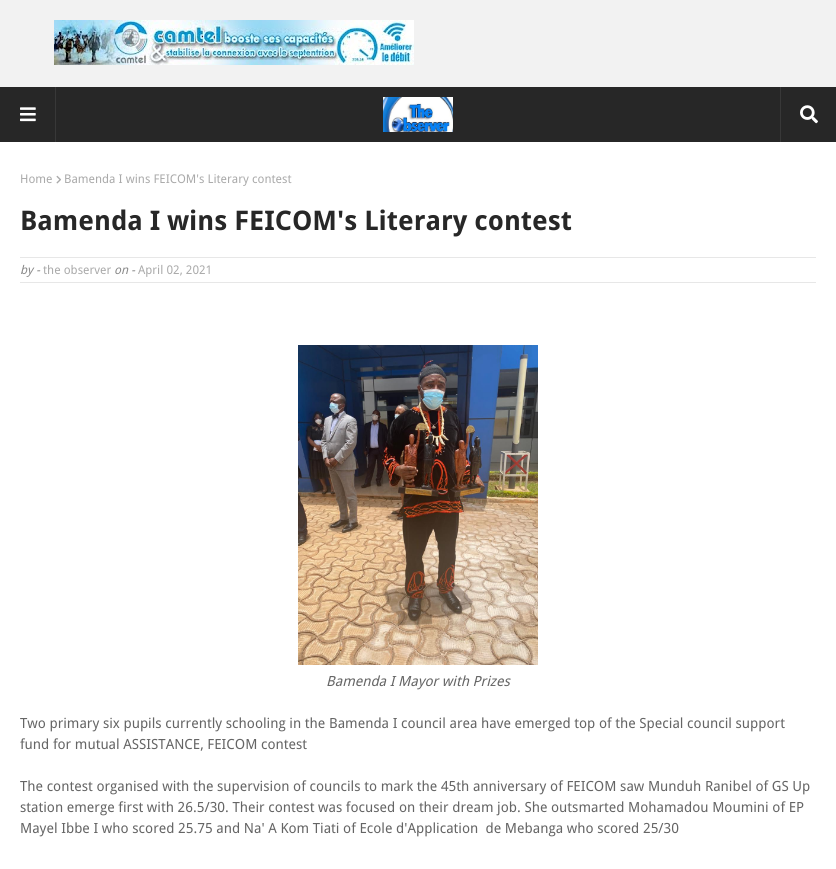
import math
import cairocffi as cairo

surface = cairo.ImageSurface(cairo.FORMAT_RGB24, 836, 869)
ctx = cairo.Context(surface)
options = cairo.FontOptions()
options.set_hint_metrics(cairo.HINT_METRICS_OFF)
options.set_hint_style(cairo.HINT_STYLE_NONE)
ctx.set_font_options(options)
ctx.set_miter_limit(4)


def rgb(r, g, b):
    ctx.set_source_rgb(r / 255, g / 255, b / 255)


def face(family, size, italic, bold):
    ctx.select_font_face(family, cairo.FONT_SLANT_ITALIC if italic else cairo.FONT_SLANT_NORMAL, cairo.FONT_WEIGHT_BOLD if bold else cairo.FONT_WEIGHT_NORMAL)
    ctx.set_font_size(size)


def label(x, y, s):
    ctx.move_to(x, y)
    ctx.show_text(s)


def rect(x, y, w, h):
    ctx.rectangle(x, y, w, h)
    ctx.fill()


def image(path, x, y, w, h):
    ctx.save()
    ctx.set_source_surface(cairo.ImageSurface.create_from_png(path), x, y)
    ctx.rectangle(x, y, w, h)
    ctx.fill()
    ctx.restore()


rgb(255, 255, 255)
ctx.paint()
rgb(242, 242, 242)
rect(0, 0, 836, 87)
image('image0.png', 54, 20, 360, 45)
rgb(39, 39, 39)
rect(0, 87, 836, 55)
rgb(56, 56, 56)
rect(55, 87, 1, 55)
image('image1.png', 20, 107, 16, 15)
image('image2.png', 383, 97, 70, 35)
rect(780, 87, 1, 55)
image('image3.png', 800, 105, 18, 19)
face('Droid Sans', 12, 0, 0)
rgb(170, 170, 170)
label(20, 183, 'Home')
image('image4.png', 56, 175, 5, 9)
label(64, 183, 'Bamenda I wins FEICOM\'s Literary contest')
face('Droid Sans', 27, 0, 1)
rgb(39, 39, 39)
label(20, 230, 'Bamenda I wins FEICOM\'s Literary contest')
rgb(231, 231, 231)
rect(20, 257, 796, 1)
rect(20, 282, 796, 1)
face('Droid Sans', 12, 1, 0)
rgb(136, 136, 136)
label(20, 274, 'by -')
face('Droid Sans', 12, 0, 0)
rgb(170, 170, 170)
label(43, 274, 'the observer')
face('Droid Sans', 12, 1, 0)
rgb(136, 136, 136)
label(114, 274, 'on -')
face('Droid Sans', 12, 0, 0)
rgb(170, 170, 170)
label(138, 274, 'April 02, 2021')
image('image5.png', 298, 345, 240, 320)
face('Droid Sans', 14, 1, 0)
rgb(101, 101, 101)
label(326, 686, 'Bamenda I Mayor with Prizes')
face('Droid Sans', 14, 0, 0)
label(20, 728, 'Two primary six pupils currently schooling in the Bamenda I council area have emerged top of the Special council support')
label(20, 749, 'fund for mutual ASSISTANCE, FEICOM contest')
label(20, 791, 'The contest organised with the supervision of councils to mark the 45th anniversary of FEICOM saw Munduh Ranibel of GS Up')
label(20, 812, 'station emerge first with 26.5/30. Their contest was focused on their dream job. She outsmarted Mohamadou Moumini of EP')
label(20, 833, 'Mayel Ibbe I who scored 25.75 and Na\' A Kom Tiati of Ecole d\'Application  de Mebanga who scored 25/30')
surface.write_to_png('render.png')
